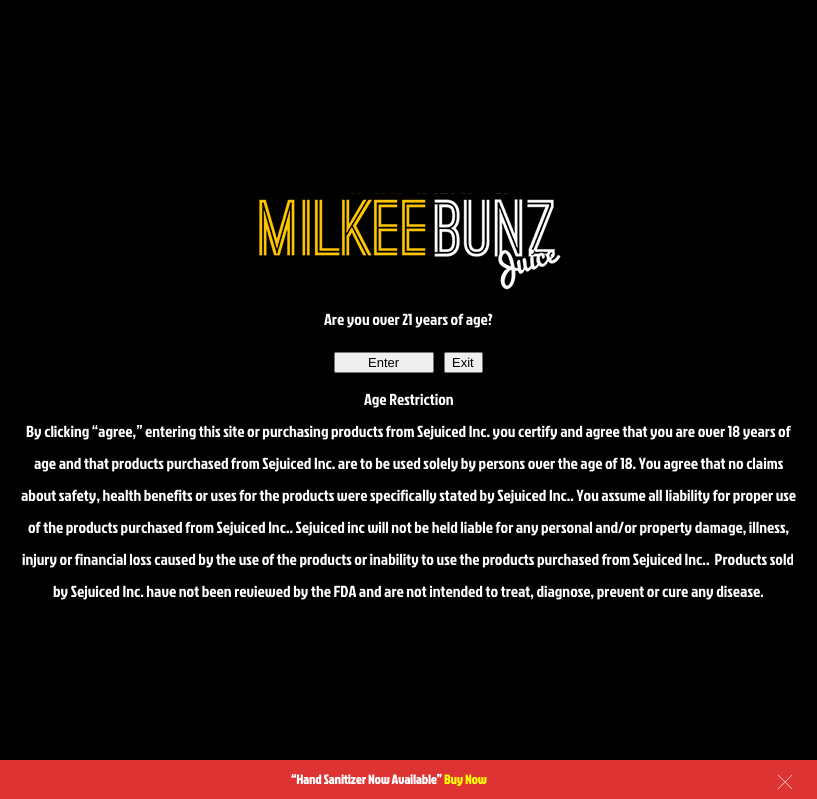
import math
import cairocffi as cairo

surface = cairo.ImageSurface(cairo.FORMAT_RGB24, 817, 799)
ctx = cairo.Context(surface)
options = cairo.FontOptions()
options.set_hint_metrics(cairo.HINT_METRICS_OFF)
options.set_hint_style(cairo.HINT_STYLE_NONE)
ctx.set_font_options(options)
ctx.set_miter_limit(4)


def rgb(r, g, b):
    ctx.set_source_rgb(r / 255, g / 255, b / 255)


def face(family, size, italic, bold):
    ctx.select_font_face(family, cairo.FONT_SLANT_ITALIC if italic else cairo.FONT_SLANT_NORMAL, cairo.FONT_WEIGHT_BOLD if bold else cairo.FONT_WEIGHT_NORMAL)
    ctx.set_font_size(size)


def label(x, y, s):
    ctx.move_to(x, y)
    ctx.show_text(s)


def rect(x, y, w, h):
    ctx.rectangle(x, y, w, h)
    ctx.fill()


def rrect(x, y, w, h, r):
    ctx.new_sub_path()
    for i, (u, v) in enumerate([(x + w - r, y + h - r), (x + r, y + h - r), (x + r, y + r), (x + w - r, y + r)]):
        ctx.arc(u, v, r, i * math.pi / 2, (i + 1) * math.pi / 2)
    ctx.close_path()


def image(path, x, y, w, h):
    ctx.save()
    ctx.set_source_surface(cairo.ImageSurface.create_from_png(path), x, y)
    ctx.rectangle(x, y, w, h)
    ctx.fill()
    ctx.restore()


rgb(0, 0, 0)
ctx.paint()
image('image0.png', 257, 193, 304, 97)
face('Jockey One', 16, 0, 0)
rgb(255, 255, 255)
label(324, 325, 'Are you over 21 years of age?')
rgb(239, 239, 239)
rrect(334.5, 352.5, 99, 20, 1.5)
ctx.fill_preserve()
rgb(118, 118, 118)
ctx.set_line_width(1)
ctx.stroke()
face('Liberation Sans', 13, 0, 0)
rgb(0, 0, 0)
label(368, 367, 'Enter')
rgb(239, 239, 239)
rrect(444.5, 352.5, 38, 20, 1.5)
ctx.fill_preserve()
rgb(118, 118, 118)
ctx.stroke()
rgb(0, 0, 0)
label(452, 367, 'Exit')
face('Jockey One', 16, 0, 0)
rgb(255, 255, 255)
label(364, 405, 'Age Restriction')
label(26, 437, 'By clicking “agree,” entering this site or purchasing products from Sejuiced Inc. you certify and agree that you are over 18 years of')
label(34, 469, 'age and that products purchased from Sejuiced Inc. are to be used solely by persons over the age of 18. You agree that no claims')
label(21, 501, 'about safety, health benefits or uses for the products were specifically stated by Sejuiced Inc.. You assume all liability for proper use')
label(28, 533, 'of the products purchased from Sejuiced Inc.. Sejuiced inc will not be held liable for any personal and/or property damage, illness,')
label(22, 565, 'injury or financial loss caused by the use of the products or inability to use the products purchased from Sejuiced Inc..  Products sold')
label(53, 597, 'by Sejuiced Inc. have not been reviewed by the FDA and are not intended to treat, diagnose, prevent or cure any disease.')
rgb(221, 51, 51)
rect(0, 760, 817, 39)
face('Jockey One', 13, 0, 1)
rgb(255, 255, 255)
label(291, 784, '“Hand Sanitizer Now Available”')
rgb(255, 255, 0)
label(444, 784, 'Buy Now')
image('image1.png', 777, 774, 16, 16)
surface.write_to_png('render.png')
